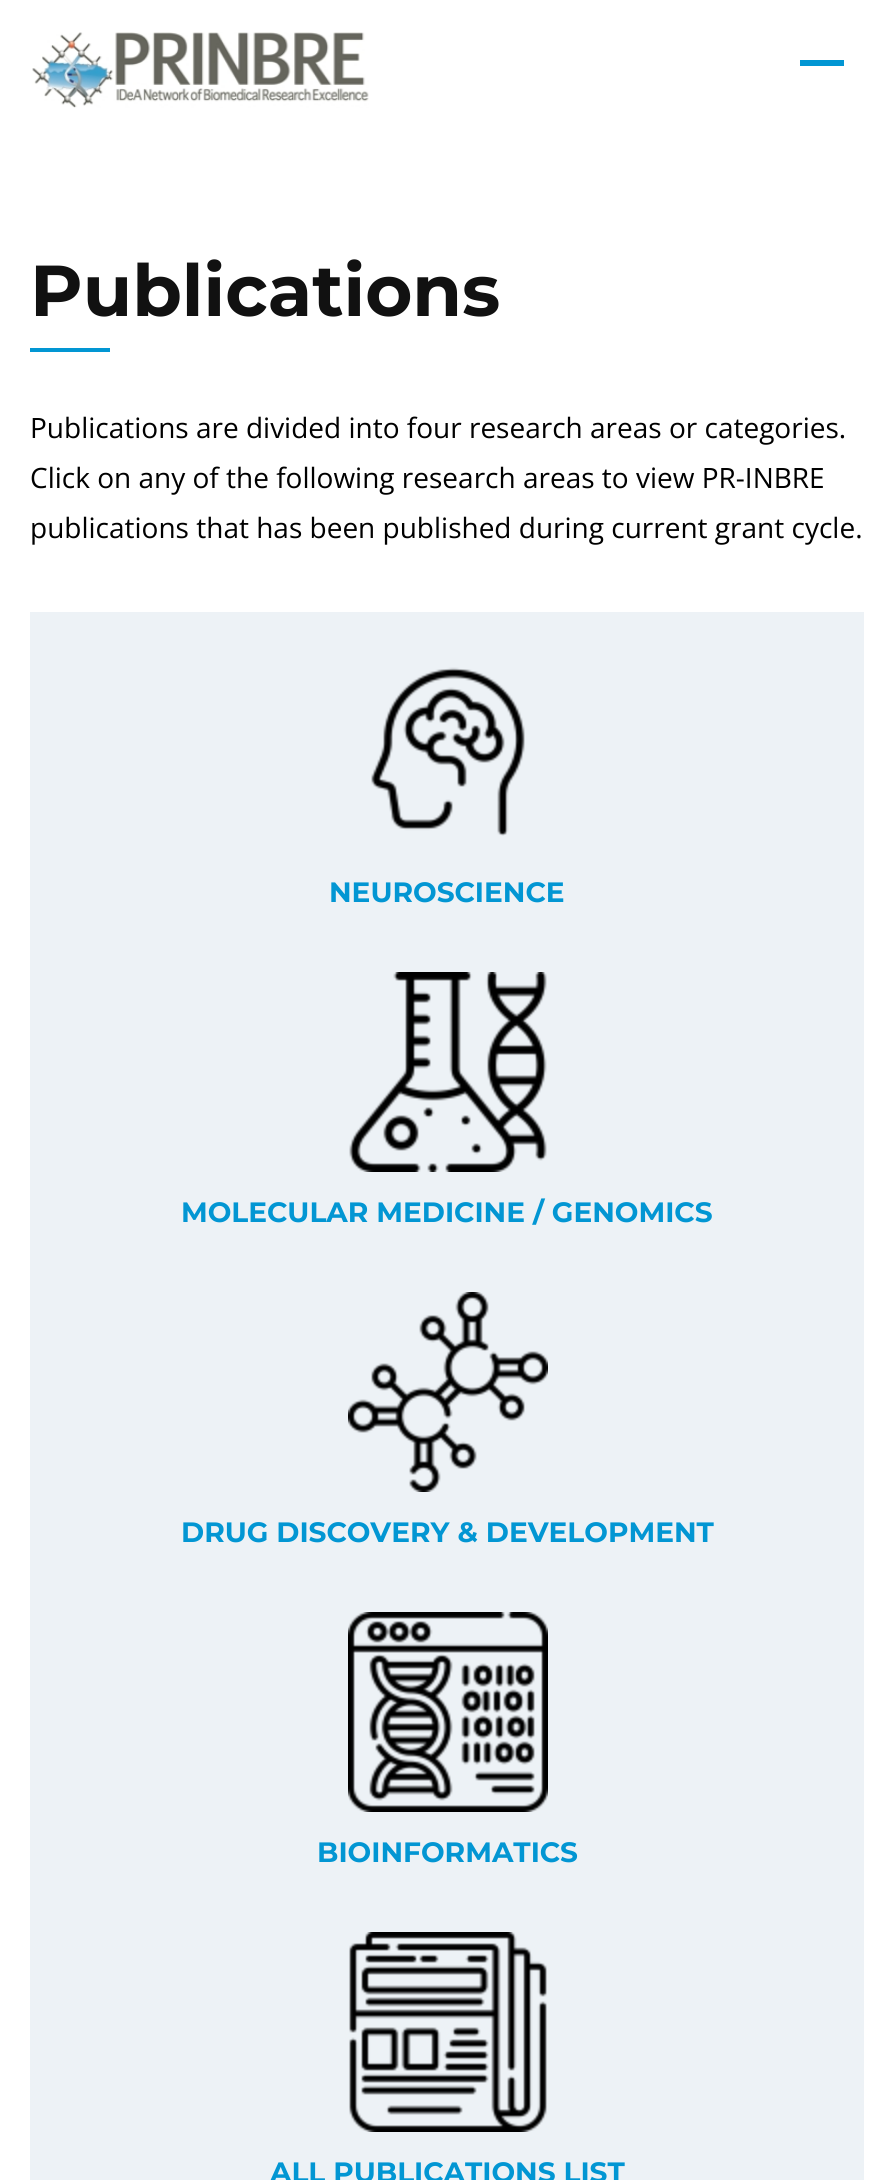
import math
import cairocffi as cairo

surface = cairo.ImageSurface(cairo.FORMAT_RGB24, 893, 2180)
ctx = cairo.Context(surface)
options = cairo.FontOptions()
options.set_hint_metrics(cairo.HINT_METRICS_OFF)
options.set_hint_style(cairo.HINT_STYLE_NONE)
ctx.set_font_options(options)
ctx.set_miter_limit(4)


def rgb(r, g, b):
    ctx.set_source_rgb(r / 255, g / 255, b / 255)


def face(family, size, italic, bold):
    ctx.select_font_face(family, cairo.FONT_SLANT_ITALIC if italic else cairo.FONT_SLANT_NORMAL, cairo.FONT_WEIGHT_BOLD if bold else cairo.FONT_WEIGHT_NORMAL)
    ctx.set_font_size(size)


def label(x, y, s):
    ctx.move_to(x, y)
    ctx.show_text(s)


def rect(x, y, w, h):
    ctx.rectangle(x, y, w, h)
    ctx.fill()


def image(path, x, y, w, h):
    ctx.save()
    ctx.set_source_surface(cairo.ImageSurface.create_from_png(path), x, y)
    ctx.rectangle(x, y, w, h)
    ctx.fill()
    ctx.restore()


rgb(255, 255, 255)
ctx.paint()
image('image0.png', 32, 32, 337, 76)
rgb(2, 150, 211)
rect(800, 60, 44, 6)
face('Montserrat', 72, 0, 1)
rgb(17, 17, 17)
label(30, 316, 'Publications')
rgb(2, 150, 211)
rect(30, 348, 80, 4)
face('Open Sans', 28, 0, 0)
rgb(0, 0, 0)
label(30, 438, 'Publications are divided into four research areas or categories.')
label(30, 488, 'Click on any of the following research areas to view PR-INBRE')
label(30, 538, 'publications that has been published during current grant cycle.')
rgb(237, 242, 246)
rect(30, 612, 834, 1568)
image('image1.png', 371, 667, 154, 169)
face('Montserrat', 28, 0, 1)
rgb(2, 150, 211)
label(329, 902, 'NEUROSCIENCE')
image('image2.png', 349, 972, 198, 200)
label(181, 1222, 'MOLECULAR MEDICINE / GENOMICS')
image('image3.png', 348, 1292, 200, 200)
label(181, 1542, 'DRUG DISCOVERY & DEVELOPMENT')
image('image4.png', 348, 1612, 200, 200)
label(317, 1862, 'BIOINFORMATICS')
image('image5.png', 349, 1932, 198, 200)
label(270, 2182, 'ALL PUBLICATIONS LIST')
surface.write_to_png('render.png')
